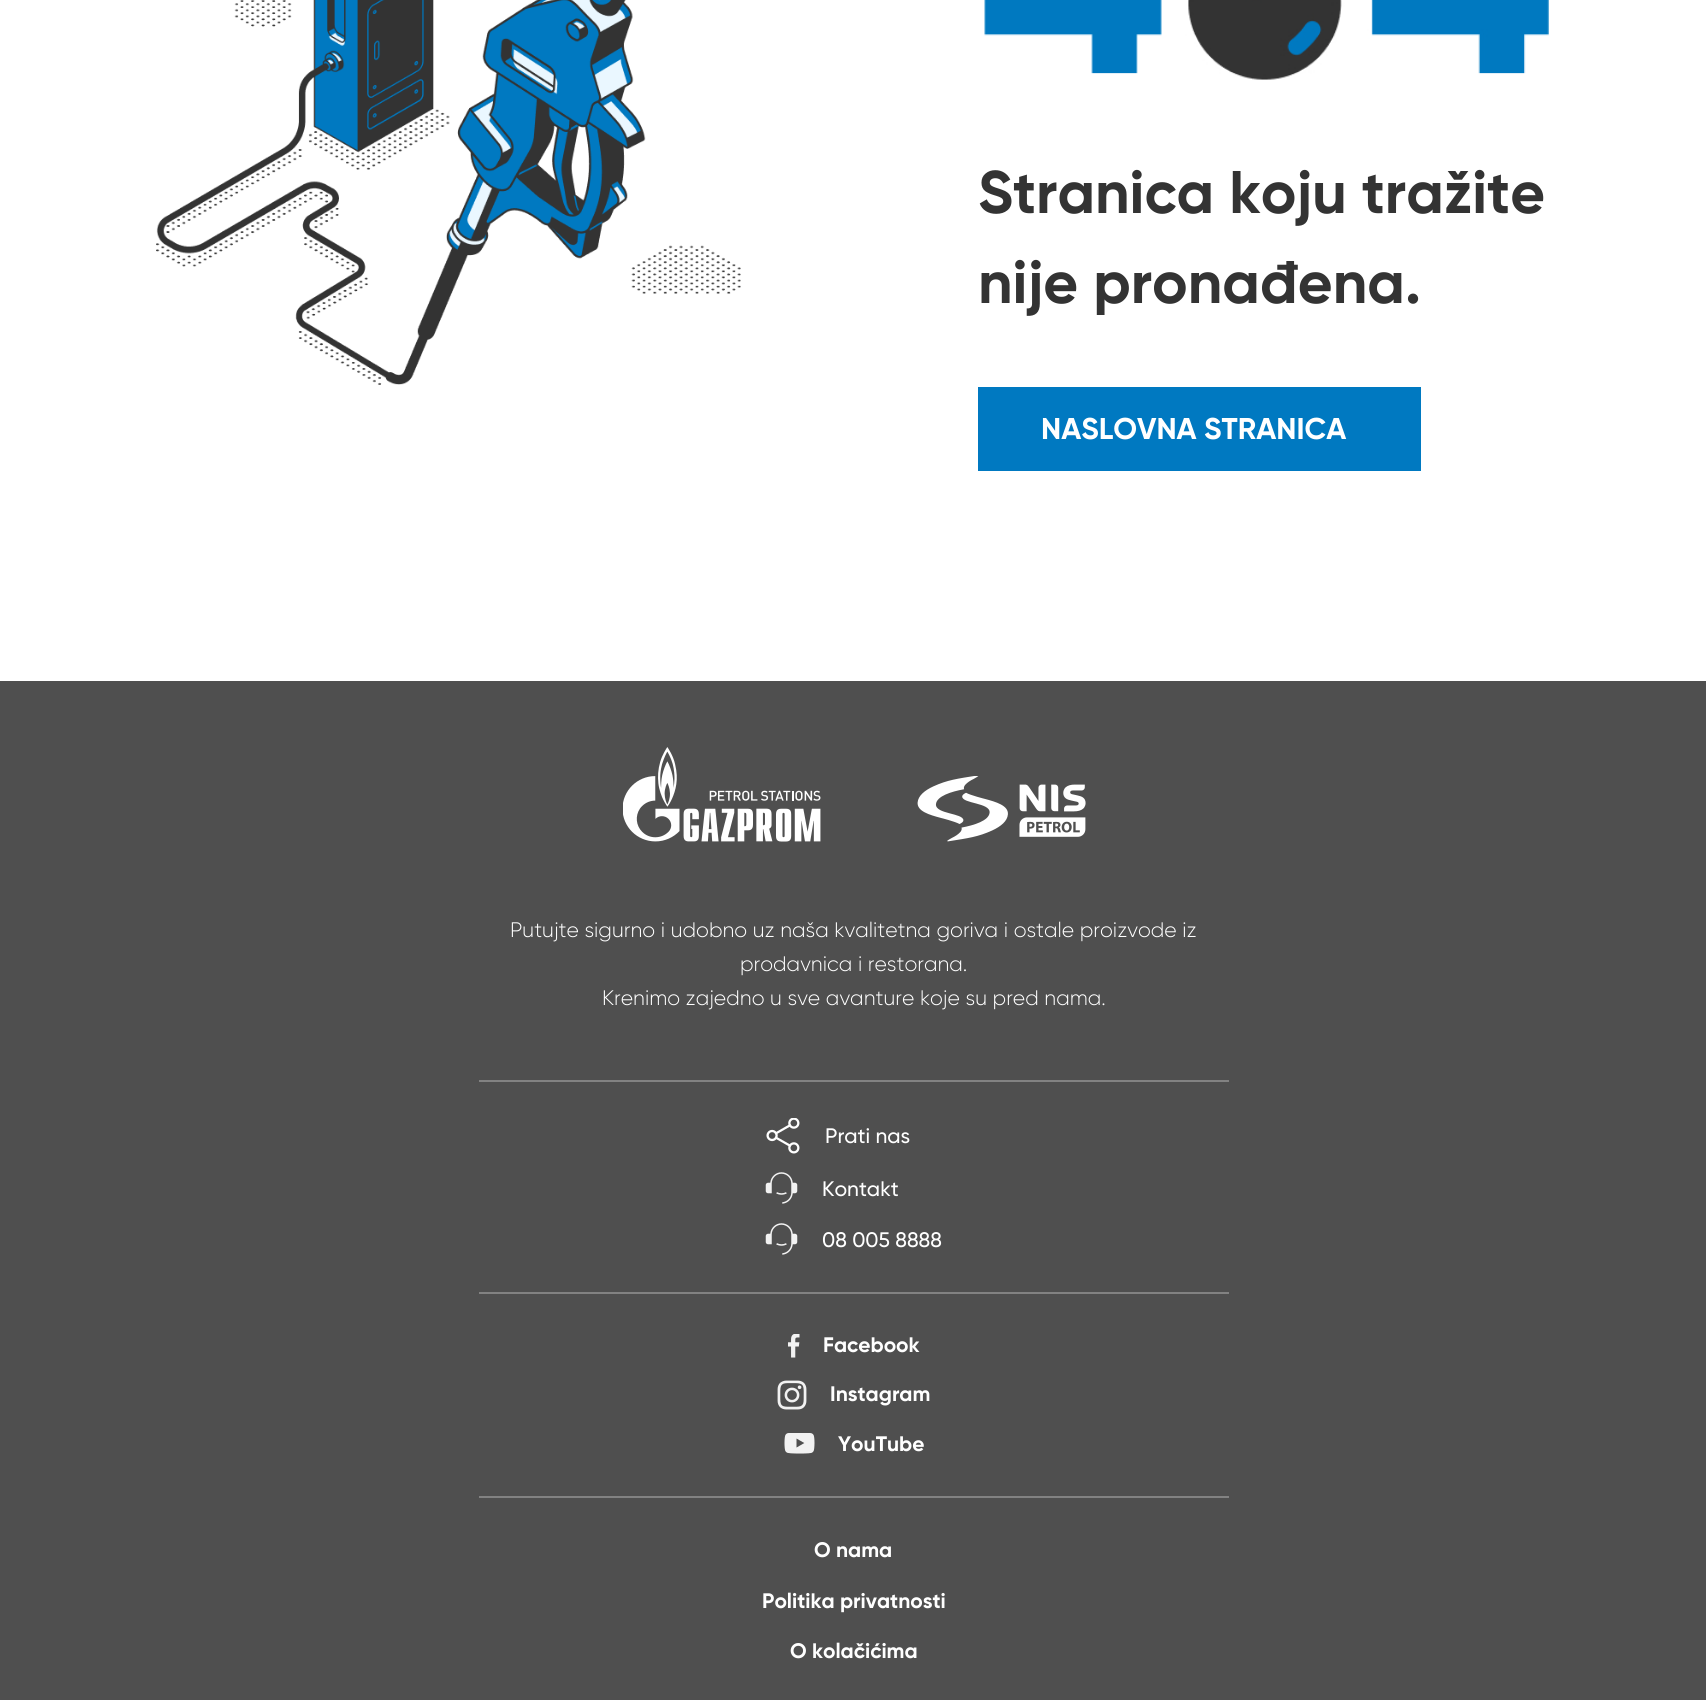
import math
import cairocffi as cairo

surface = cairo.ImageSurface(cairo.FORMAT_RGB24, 1706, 1700)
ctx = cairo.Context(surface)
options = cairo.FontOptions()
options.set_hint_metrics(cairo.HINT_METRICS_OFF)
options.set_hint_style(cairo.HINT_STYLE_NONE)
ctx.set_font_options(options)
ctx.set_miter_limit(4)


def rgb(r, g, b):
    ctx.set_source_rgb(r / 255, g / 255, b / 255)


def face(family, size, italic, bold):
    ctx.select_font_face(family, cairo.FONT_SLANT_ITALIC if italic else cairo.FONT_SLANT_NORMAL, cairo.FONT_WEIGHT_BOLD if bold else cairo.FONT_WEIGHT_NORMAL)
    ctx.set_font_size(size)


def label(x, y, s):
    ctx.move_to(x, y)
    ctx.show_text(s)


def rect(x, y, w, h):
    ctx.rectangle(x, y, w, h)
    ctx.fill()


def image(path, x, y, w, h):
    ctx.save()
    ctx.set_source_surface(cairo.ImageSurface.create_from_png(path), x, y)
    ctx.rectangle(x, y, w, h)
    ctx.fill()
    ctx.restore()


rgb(255, 255, 255)
ctx.paint()
image('image0.png', 156, 0, 585, 385)
image('image1.png', 984, 0, 565, 80)
face('Gilroy', 60, 0, 1)
rgb(51, 51, 51)
label(978, 213, 'Stranica koju tražite')
label(978, 303, 'nije pronađena.')
rgb(0, 121, 193)
rect(978, 387, 443, 84)
face('Gilroy', 30, 0, 1)
rgb(255, 255, 255)
label(1041, 439, 'NASLOVNA STRANICA')
rgb(79, 79, 79)
rect(0, 681, 1706, 1019)
rgb(130, 130, 130)
rect(479, 1080, 750, 2)
image('image2.png', 623, 747, 198, 95)
image('image3.png', 917, 776, 169, 66)
face('Gilroy Light', 21, 0, 0)
rgb(255, 255, 255)
label(510, 937, 'Putujte sigurno i udobno uz naša kvalitetna goriva i ostale proizvode iz')
label(740, 971, 'prodavnica i restorana.')
label(602, 1005, 'Krenimo zajedno u sve avanture koje su pred nama.')
rgb(130, 130, 130)
rect(479, 1292, 750, 2)
image('image4.png', 766, 1118, 34, 36)
face('Gilroy Medium', 21, 0, 0)
rgb(255, 255, 255)
label(825, 1143, 'Prati nas')
image('image5.png', 765, 1172, 33, 32)
label(822, 1196, 'Kontakt')
image('image5.png', 765, 1223, 33, 32)
label(822, 1247, '08 005 8888')
rgb(130, 130, 130)
rect(479, 1496, 750, 2)
image('image6.png', 788, 1334, 12, 24)
face('Gilroy', 21, 0, 1)
rgb(255, 255, 255)
label(823, 1352, 'Facebook')
image('image7.png', 777, 1380, 30, 30)
label(830, 1401, 'Instagram')
image('image8.png', 784, 1433, 31, 21)
label(838, 1451, 'YouTube')
label(814, 1557, 'O nama')
label(762, 1608, 'Politika privatnosti')
label(790, 1658, 'O kolačićima')
surface.write_to_png('render.png')
